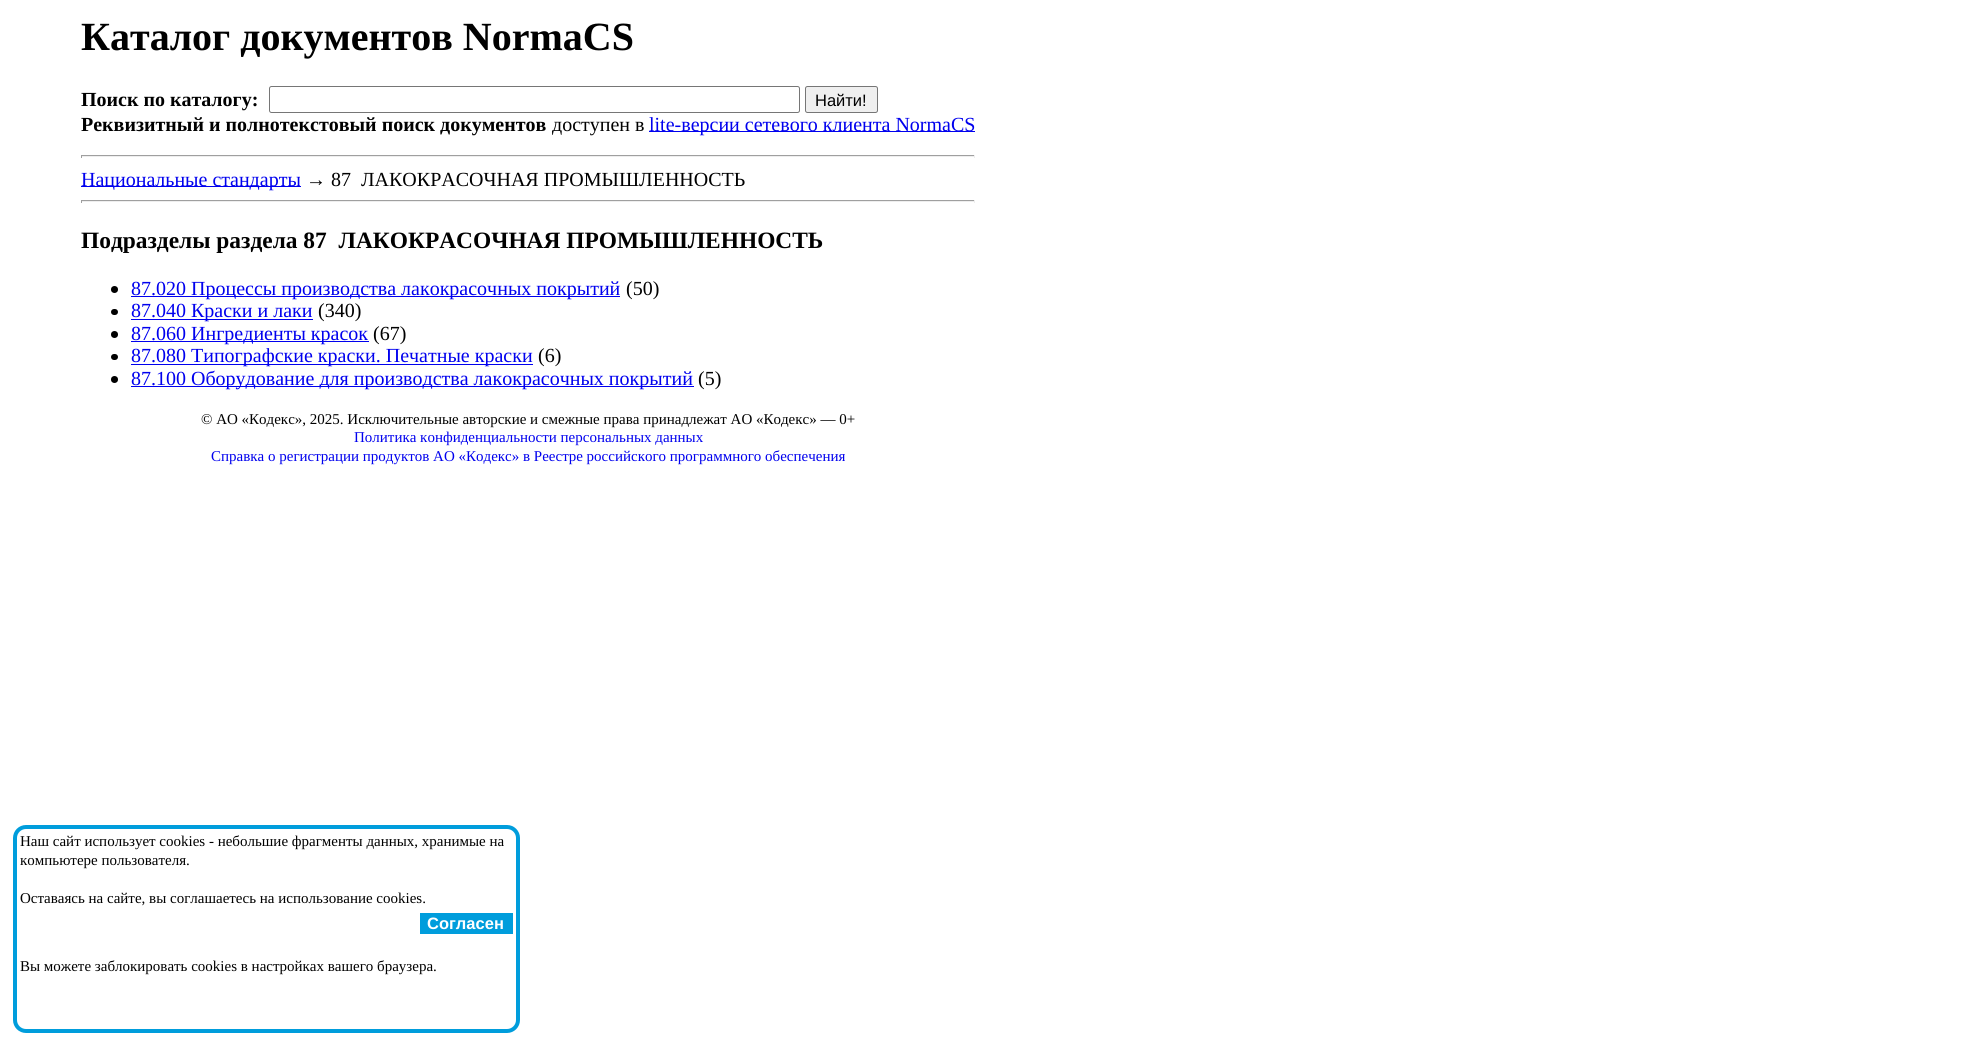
import math
import cairocffi as cairo

surface = cairo.ImageSurface(cairo.FORMAT_RGB24, 1968, 1050)
ctx = cairo.Context(surface)
options = cairo.FontOptions()
options.set_hint_metrics(cairo.HINT_METRICS_OFF)
options.set_hint_style(cairo.HINT_STYLE_NONE)
ctx.set_font_options(options)
ctx.set_miter_limit(4)


def rgb(r, g, b):
    ctx.set_source_rgb(r / 255, g / 255, b / 255)


def face(family, size, italic, bold):
    ctx.select_font_face(family, cairo.FONT_SLANT_ITALIC if italic else cairo.FONT_SLANT_NORMAL, cairo.FONT_WEIGHT_BOLD if bold else cairo.FONT_WEIGHT_NORMAL)
    ctx.set_font_size(size)


def label(x, y, s):
    ctx.move_to(x, y)
    ctx.show_text(s)


def rect(x, y, w, h):
    ctx.rectangle(x, y, w, h)
    ctx.fill()


def rrect(x, y, w, h, r):
    ctx.new_sub_path()
    for i, (u, v) in enumerate([(x + w - r, y + h - r), (x + r, y + h - r), (x + r, y + r), (x + w - r, y + r)]):
        ctx.arc(u, v, r, i * math.pi / 2, (i + 1) * math.pi / 2)
    ctx.close_path()


rgb(255, 255, 255)
ctx.paint()
face('Liberation Serif', 40, 0, 1)
rgb(0, 0, 0)
label(81, 50, 'Каталог документов NormaCS')
face('Liberation Serif', 20, 0, 1)
label(81, 106, 'Поиск по каталогу:')
rrect(269.5, 86.5, 530, 26, 2)
rgb(118, 118, 118)
ctx.set_line_width(1)
ctx.stroke()
rgb(239, 239, 239)
rrect(805.5, 86.5, 72, 26, 2)
ctx.fill_preserve()
rgb(118, 118, 118)
ctx.stroke()
face('Liberation Sans', 16.5, 0, 0)
rgb(0, 0, 0)
label(815, 106, 'Найти!')
face('Liberation Serif', 20, 0, 1)
label(81, 131, 'Реквизитный и полнотекстовый поиск документов')
face('Liberation Serif', 20, 0, 0)
label(552, 131, 'доступен в')
rgb(0, 0, 238)
rect(649, 131, 326, 1)
label(649, 131, 'lite-версии сетевого клиента NormaCS')
rgb(159, 159, 159)
rect(81, 155, 894, 1)
rgb(238, 238, 238)
rect(974, 155, 1, 3)
rect(81, 156, 894, 1)
rgb(159, 159, 159)
rect(81, 155, 1, 3)
rgb(0, 0, 238)
rect(81, 186, 220, 1)
label(81, 186, 'Национальные стандарты')
rgb(0, 0, 0)
label(306, 186, '→ 87  ЛАКОКРАСОЧНАЯ ПРОМЫШЛЕННОСТЬ')
rgb(159, 159, 159)
rect(81, 200, 894, 1)
rgb(238, 238, 238)
rect(974, 200, 1, 3)
rect(81, 201, 894, 1)
rgb(159, 159, 159)
rect(81, 200, 1, 3)
face('Liberation Serif', 23.4, 0, 1)
rgb(0, 0, 0)
label(81, 248, 'Подразделы раздела 87  ЛАКОКРАСОЧНАЯ ПРОМЫШЛЕННОСТЬ')
ctx.new_path()
ctx.arc(114.5, 289.5, 3.5, 0, 2 * math.pi)
ctx.fill()
rgb(0, 0, 238)
rect(131, 296, 489, 1)
face('Liberation Serif', 20, 0, 0)
label(131, 295, '87.020 Процессы производства лакокрасочных покрытий')
rgb(0, 0, 0)
label(626, 295, '(50)')
rrect(111, 309, 7, 6, 3)
ctx.fill()
rgb(0, 0, 238)
rect(131, 319, 182, 1)
label(131, 317, '87.040 Краски и лаки')
rgb(0, 0, 0)
label(318, 317, '(340)')
ctx.new_path()
ctx.arc(114.5, 334.5, 3.5, 0, 2 * math.pi)
ctx.fill()
rgb(0, 0, 238)
rect(131, 341, 238, 1)
label(131, 340, '87.060 Ингредиенты красок')
rgb(0, 0, 0)
label(373, 340, '(67)')
rrect(111, 354, 7, 6, 3)
ctx.fill()
rgb(0, 0, 238)
rect(131, 364, 402, 1)
label(131, 362, '87.080 Типографские краски. Печатные краски')
rgb(0, 0, 0)
label(538, 362, '(6)')
ctx.new_path()
ctx.arc(114.5, 379.5, 3.5, 0, 2 * math.pi)
ctx.fill()
rgb(0, 0, 238)
rect(131, 386, 563, 1)
label(131, 385, '87.100 Оборудование для производства лакокрасочных покрытий')
rgb(0, 0, 0)
label(698, 385, '(5)')
face('Liberation Serif', 15, 0, 0)
label(201, 424, '© АО «Кодекс», 2025. Исключительные авторские и смежные права принадлежат АО «Кодекс» — 0+')
rgb(0, 0, 238)
label(354, 442, 'Политика конфиденциальности персональных данных')
label(211, 461, 'Справка о регистрации продуктов АО «Кодекс» в Реестре российского программного обеспечения')
rrect(15, 827, 503, 204, 11)
rgb(0, 157, 220)
ctx.set_line_width(4)
ctx.stroke()
rgb(0, 0, 0)
label(20, 846, 'Наш сайт использует cookies - небольшие фрагменты данных, хранимые на')
label(20, 865, 'компьютере пользователя.')
label(20, 903, 'Оставаясь на сайте, вы соглашаетесь на использование cookies.')
rgb(0, 157, 220)
rect(420, 913, 93, 21)
face('Liberation Sans', 16.5, 0, 1)
rgb(255, 255, 255)
label(427, 929, 'Согласен')
face('Liberation Serif', 15, 0, 0)
rgb(0, 0, 0)
label(20, 971, 'Вы можете заблокировать cookies в настройках вашего браузера.')
surface.write_to_png('render.png')
